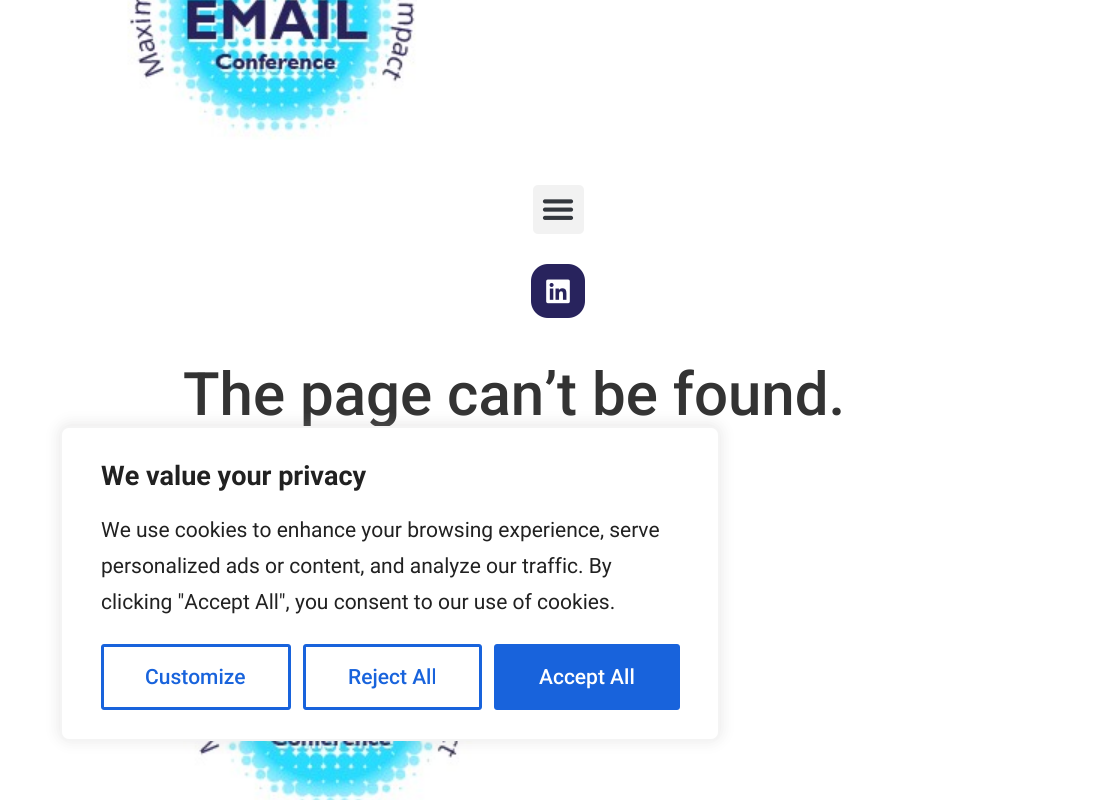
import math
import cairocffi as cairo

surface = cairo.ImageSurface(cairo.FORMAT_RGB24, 1116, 800)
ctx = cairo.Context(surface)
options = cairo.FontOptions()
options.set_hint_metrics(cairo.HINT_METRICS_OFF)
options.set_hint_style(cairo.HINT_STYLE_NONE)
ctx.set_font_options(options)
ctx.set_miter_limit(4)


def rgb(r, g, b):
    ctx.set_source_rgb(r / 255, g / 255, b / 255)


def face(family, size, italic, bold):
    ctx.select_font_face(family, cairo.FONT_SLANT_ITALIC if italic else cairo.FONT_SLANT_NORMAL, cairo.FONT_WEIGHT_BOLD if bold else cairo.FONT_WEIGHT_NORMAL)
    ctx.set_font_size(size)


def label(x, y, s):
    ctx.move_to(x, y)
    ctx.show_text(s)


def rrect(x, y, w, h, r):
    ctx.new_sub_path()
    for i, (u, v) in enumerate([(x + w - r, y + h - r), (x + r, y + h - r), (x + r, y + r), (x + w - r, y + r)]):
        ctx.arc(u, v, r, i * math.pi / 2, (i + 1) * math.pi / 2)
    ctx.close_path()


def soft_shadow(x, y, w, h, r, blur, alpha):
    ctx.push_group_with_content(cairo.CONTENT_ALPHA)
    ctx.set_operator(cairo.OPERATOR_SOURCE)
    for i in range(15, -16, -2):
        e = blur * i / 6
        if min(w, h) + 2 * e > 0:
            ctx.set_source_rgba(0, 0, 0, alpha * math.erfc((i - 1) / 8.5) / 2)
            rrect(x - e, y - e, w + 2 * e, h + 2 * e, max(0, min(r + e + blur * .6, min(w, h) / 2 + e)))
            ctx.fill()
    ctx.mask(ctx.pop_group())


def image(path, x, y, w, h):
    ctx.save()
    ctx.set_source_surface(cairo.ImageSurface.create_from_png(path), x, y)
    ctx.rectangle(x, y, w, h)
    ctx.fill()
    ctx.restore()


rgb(255, 255, 255)
ctx.paint()
image('image0.png', 127, 0, 290, 140)
rgb(242, 242, 242)
rrect(533, 185, 51, 49, 5)
ctx.fill()
image('image1.png', 542, 199, 32, 21)
rgb(40, 35, 93)
rrect(531, 264, 54, 54, 17)
ctx.fill()
image('image2.png', 546, 279, 24, 25)
face('Roboto Medium', 60, 0, 0)
rgb(51, 51, 51)
label(183, 415, 'The page can’t be found.')
image('image3.png', 183, 741, 290, 59)
rgb(172, 171, 171)
soft_shadow(60, 425, 660, 315, 9, 7.5, 0.3)
rgb(255, 255, 255)
rrect(61, 427, 658, 313, 8)
ctx.fill_preserve()
rgb(244, 244, 244)
ctx.stroke()
face('Roboto', 27, 0, 1)
rgb(33, 33, 33)
label(101, 485, 'We value your privacy')
face('Roboto', 21, 0, 0)
label(101, 537, 'We use cookies to enhance your browsing experience, serve')
label(101, 573, 'personalized ads or content, and analyze our traffic. By')
label(101, 609, 'clicking "Accept All", you consent to our use of cookies.')
rrect(102.5, 645.5, 187, 63, 1.5)
rgb(24, 99, 220)
ctx.set_line_width(3)
ctx.stroke()
face('Roboto Medium', 21, 0, 0)
label(145, 684, 'Customize')
rrect(304.5, 645.5, 176, 63, 1.5)
ctx.stroke()
label(348, 684, 'Reject All')
rrect(495.5, 645.5, 183, 63, 1.5)
ctx.fill_preserve()
ctx.stroke()
rgb(255, 255, 255)
label(539, 684, 'Accept All')
surface.write_to_png('render.png')
